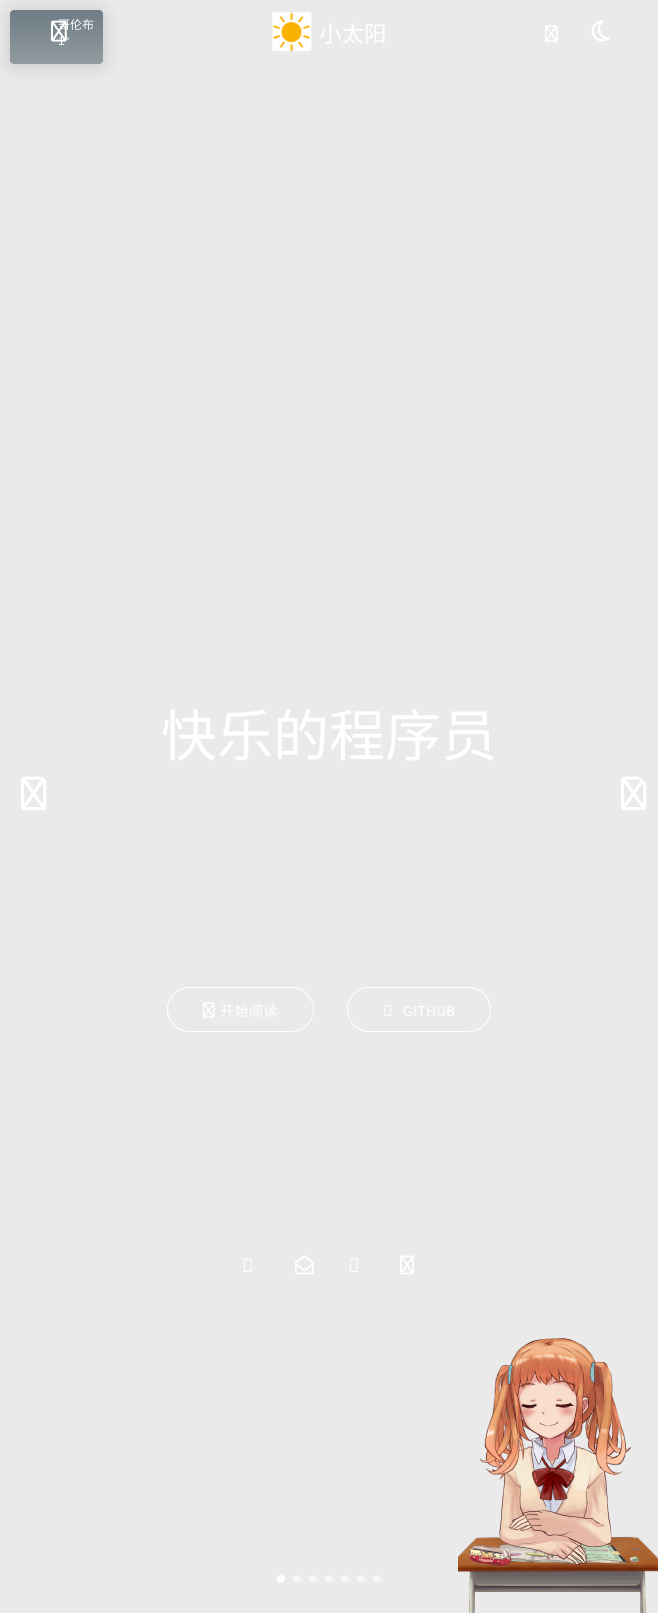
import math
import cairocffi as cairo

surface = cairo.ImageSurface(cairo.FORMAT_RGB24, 658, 1613)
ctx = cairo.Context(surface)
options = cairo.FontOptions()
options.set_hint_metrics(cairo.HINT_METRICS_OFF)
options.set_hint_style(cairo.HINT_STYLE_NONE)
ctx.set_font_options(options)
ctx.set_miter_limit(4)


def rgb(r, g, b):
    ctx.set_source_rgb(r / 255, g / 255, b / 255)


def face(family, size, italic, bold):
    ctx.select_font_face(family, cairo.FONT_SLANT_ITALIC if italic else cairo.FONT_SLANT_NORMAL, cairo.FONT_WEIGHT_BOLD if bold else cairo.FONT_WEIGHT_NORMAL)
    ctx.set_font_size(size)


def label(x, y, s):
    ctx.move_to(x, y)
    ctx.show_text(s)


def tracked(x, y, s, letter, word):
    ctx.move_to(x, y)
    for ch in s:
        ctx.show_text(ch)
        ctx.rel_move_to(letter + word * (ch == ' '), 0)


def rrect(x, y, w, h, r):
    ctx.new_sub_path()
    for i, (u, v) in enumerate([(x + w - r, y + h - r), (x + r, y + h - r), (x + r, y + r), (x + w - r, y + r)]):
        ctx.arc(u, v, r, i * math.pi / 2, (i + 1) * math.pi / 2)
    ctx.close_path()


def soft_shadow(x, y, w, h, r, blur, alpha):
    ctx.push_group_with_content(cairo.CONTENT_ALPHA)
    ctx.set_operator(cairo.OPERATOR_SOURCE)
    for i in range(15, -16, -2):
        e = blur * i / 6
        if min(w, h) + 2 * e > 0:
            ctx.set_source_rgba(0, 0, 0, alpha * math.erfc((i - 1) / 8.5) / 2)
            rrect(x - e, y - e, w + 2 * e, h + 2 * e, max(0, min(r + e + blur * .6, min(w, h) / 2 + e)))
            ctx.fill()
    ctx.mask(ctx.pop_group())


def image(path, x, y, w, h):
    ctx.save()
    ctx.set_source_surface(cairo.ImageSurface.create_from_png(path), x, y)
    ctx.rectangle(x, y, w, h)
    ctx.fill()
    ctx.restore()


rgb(234, 234, 234)
ctx.paint()
rgb(0, 0, 0)
soft_shadow(10, 12, 93, 54, 4, 10, 0.15)
gradient = cairo.LinearGradient(57, 10, 57, 64)
gradient.add_color_stop_rgba(0, 0.435, 0.486, 0.522, 1)
gradient.add_color_stop_rgba(1, 0.569, 0.608, 0.624, 1)
ctx.set_source(gradient)
rrect(10, 10, 93, 54, 4)
ctx.fill()
face('Noto Sans CJK SC', 12, 0, 0)
rgb(255, 255, 255)
label(58, 29, '哥伦布')
face('Liberation Sans', 12, 0, 0)
label(58, 45, '1°')
image('image0.png', 51, 20, 16, 22)
image('image1.png', 272, 12, 40, 40)
face('Noto Sans CJK SC', 22.5, 0, 0)
label(319, 42, '小太阳')
image('image2.png', 545, 25, 13, 17)
image('image3.png', 591, 20, 19, 22)
image('image4.png', 21, 776, 26, 35)
face('Noto Sans CJK SC', 56, 0, 0)
label(161, 756, '快乐的程序员')
rrect(167.5, 987.5, 146, 44, 22)
ctx.set_line_width(1)
ctx.stroke()
image('image5.png', 203, 1002, 12, 16)
face('Noto Sans CJK SC', 14, 0, 0)
tracked(220, 1016, '开始阅读', 0.5, 0)
rrect(347.5, 987.5, 143, 44, 22)
ctx.stroke()
image('image6.png', 384, 1005, 7, 11)
face('Roboto', 14, 0, 0)
tracked(403, 1016, 'GITHUB', 0.5, 0)
image('image7.png', 243, 1258, 9, 14)
image('image8.png', 295, 1255, 19, 20)
image('image7.png', 349, 1258, 9, 14)
image('image9.png', 400, 1255, 14, 20)
image('image10.png', 621, 776, 26, 35)
ctx.arc(281, 1579, 4, 0, 2 * math.pi)
ctx.fill()
rgb(245, 245, 245)
ctx.arc(297, 1579, 4, 0, 2 * math.pi)
ctx.fill()
ctx.arc(313, 1579, 4, 0, 2 * math.pi)
ctx.fill()
ctx.arc(329, 1579, 4, 0, 2 * math.pi)
ctx.fill()
ctx.arc(345, 1579, 4, 0, 2 * math.pi)
ctx.fill()
ctx.arc(361, 1579, 4, 0, 2 * math.pi)
ctx.fill()
ctx.arc(377, 1579, 4, 0, 2 * math.pi)
ctx.fill()
image('image11.png', 458, 1338, 200, 275)
surface.write_to_png('render.png')
